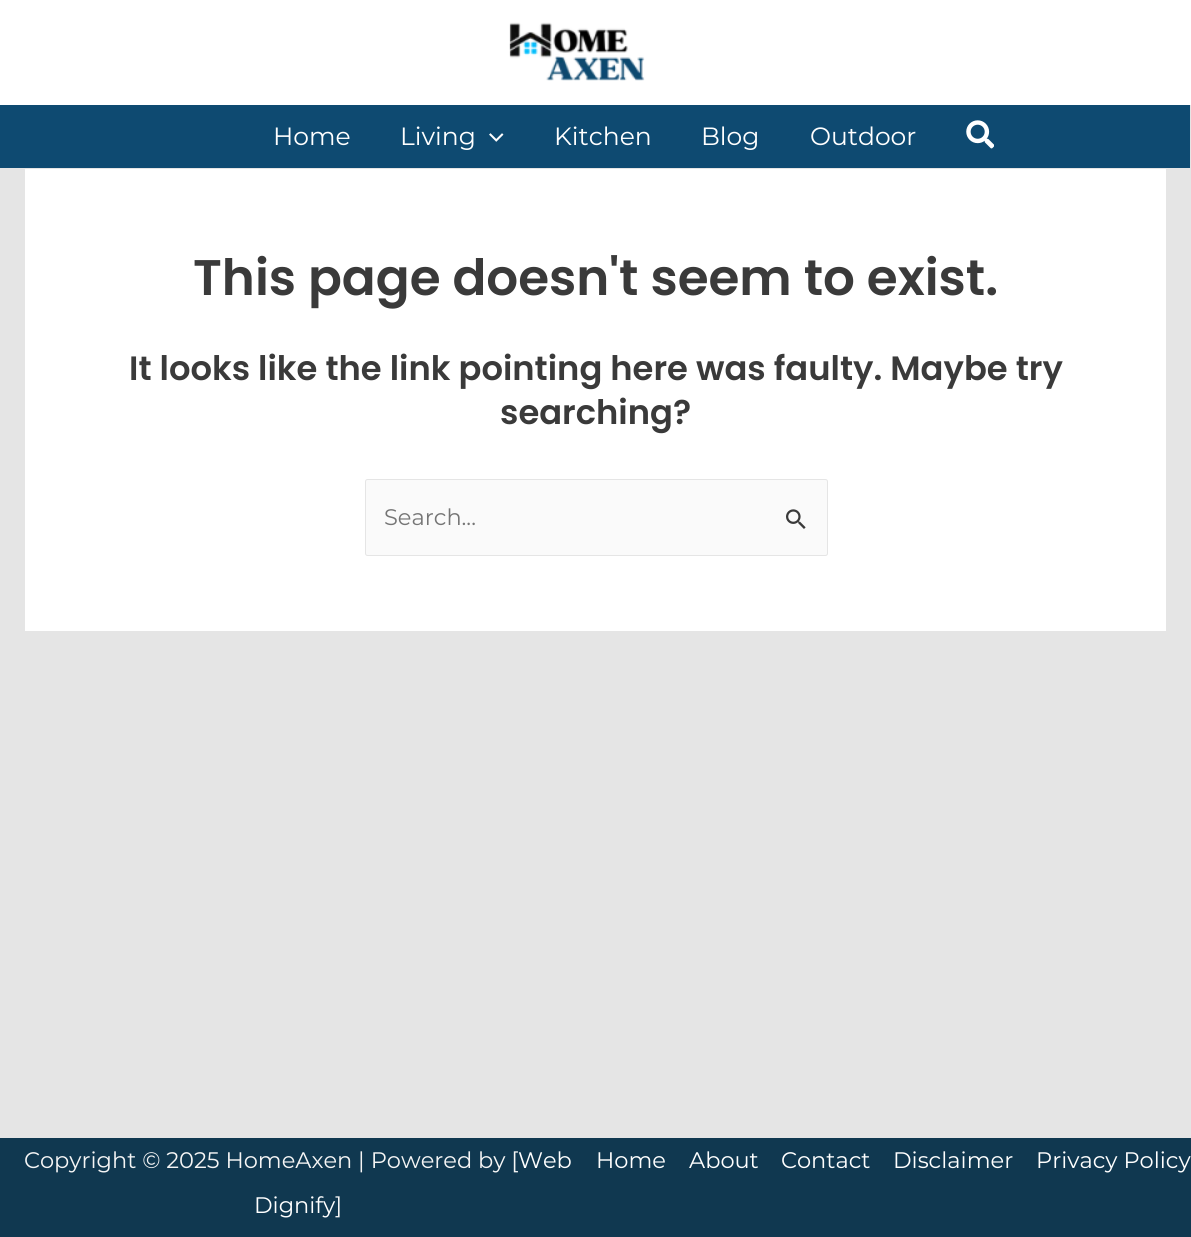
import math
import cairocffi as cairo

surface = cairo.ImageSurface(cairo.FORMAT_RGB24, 1191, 1237)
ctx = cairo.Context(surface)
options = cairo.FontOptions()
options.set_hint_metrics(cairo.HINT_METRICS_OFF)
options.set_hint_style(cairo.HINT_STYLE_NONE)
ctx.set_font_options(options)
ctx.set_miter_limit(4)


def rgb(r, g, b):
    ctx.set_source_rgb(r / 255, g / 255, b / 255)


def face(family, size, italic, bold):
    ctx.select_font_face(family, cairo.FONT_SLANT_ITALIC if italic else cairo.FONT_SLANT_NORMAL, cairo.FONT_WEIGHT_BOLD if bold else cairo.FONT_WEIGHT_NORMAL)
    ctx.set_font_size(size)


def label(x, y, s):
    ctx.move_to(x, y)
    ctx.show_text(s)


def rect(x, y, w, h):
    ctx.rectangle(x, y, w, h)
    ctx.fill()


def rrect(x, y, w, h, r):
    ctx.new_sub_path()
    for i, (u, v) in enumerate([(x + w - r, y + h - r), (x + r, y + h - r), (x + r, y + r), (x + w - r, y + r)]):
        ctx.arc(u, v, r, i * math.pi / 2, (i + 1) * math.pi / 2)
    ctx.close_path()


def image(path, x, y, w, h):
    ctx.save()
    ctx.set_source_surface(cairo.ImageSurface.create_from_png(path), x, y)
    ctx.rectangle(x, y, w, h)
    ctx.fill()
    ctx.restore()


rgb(229, 229, 229)
ctx.paint()
rgb(255, 255, 255)
rect(0, 0, 1191, 105)
image('image0.png', 509, 22, 136, 59)
rgb(14, 74, 113)
rect(0, 105, 1190, 63)
face('Montserrat Thin', 25, 0, 0)
rgb(255, 255, 255)
label(273, 145, 'Home')
label(400, 145, 'Living')
image('image1.png', 489, 133, 15, 9)
label(554, 145, 'Kitchen')
label(701, 145, 'Blog')
label(810, 145, 'Outdoor')
image('image2.png', 966, 120, 28, 29)
rect(25, 169, 1141, 462)
face('Poppins SemiBold', 50, 0, 0)
rgb(58, 58, 58)
label(193, 295, 'This page doesn\'t seem to exist.')
face('Poppins SemiBold', 33.75, 0, 0)
label(129, 380, 'It looks like the link pointing here was faulty. Maybe try')
label(500, 424, 'searching?')
rgb(250, 250, 250)
rrect(365.5, 479.5, 462, 76, 2)
ctx.fill_preserve()
rgb(229, 229, 229)
ctx.set_line_width(1)
ctx.stroke()
face('Montserrat Thin', 22.5, 0, 0)
rgb(117, 117, 117)
label(384, 525, 'Search...')
image('image3.png', 786, 509, 20, 20)
rgb(16, 56, 80)
rect(0, 1138, 1191, 99)
rgb(245, 245, 245)
label(24, 1168, 'Copyright © 2025 HomeAxen | Powered by [')
rgb(255, 255, 255)
label(518, 1168, 'Web')
label(254, 1213, 'Dignify')
rgb(245, 245, 245)
label(335, 1213, ']')
rgb(255, 255, 255)
label(596, 1168, 'Home')
label(689, 1168, 'About')
label(781, 1168, 'Contact')
label(893, 1168, 'Disclaimer')
label(1036, 1168, 'Privacy Policy')
surface.write_to_png('render.png')
